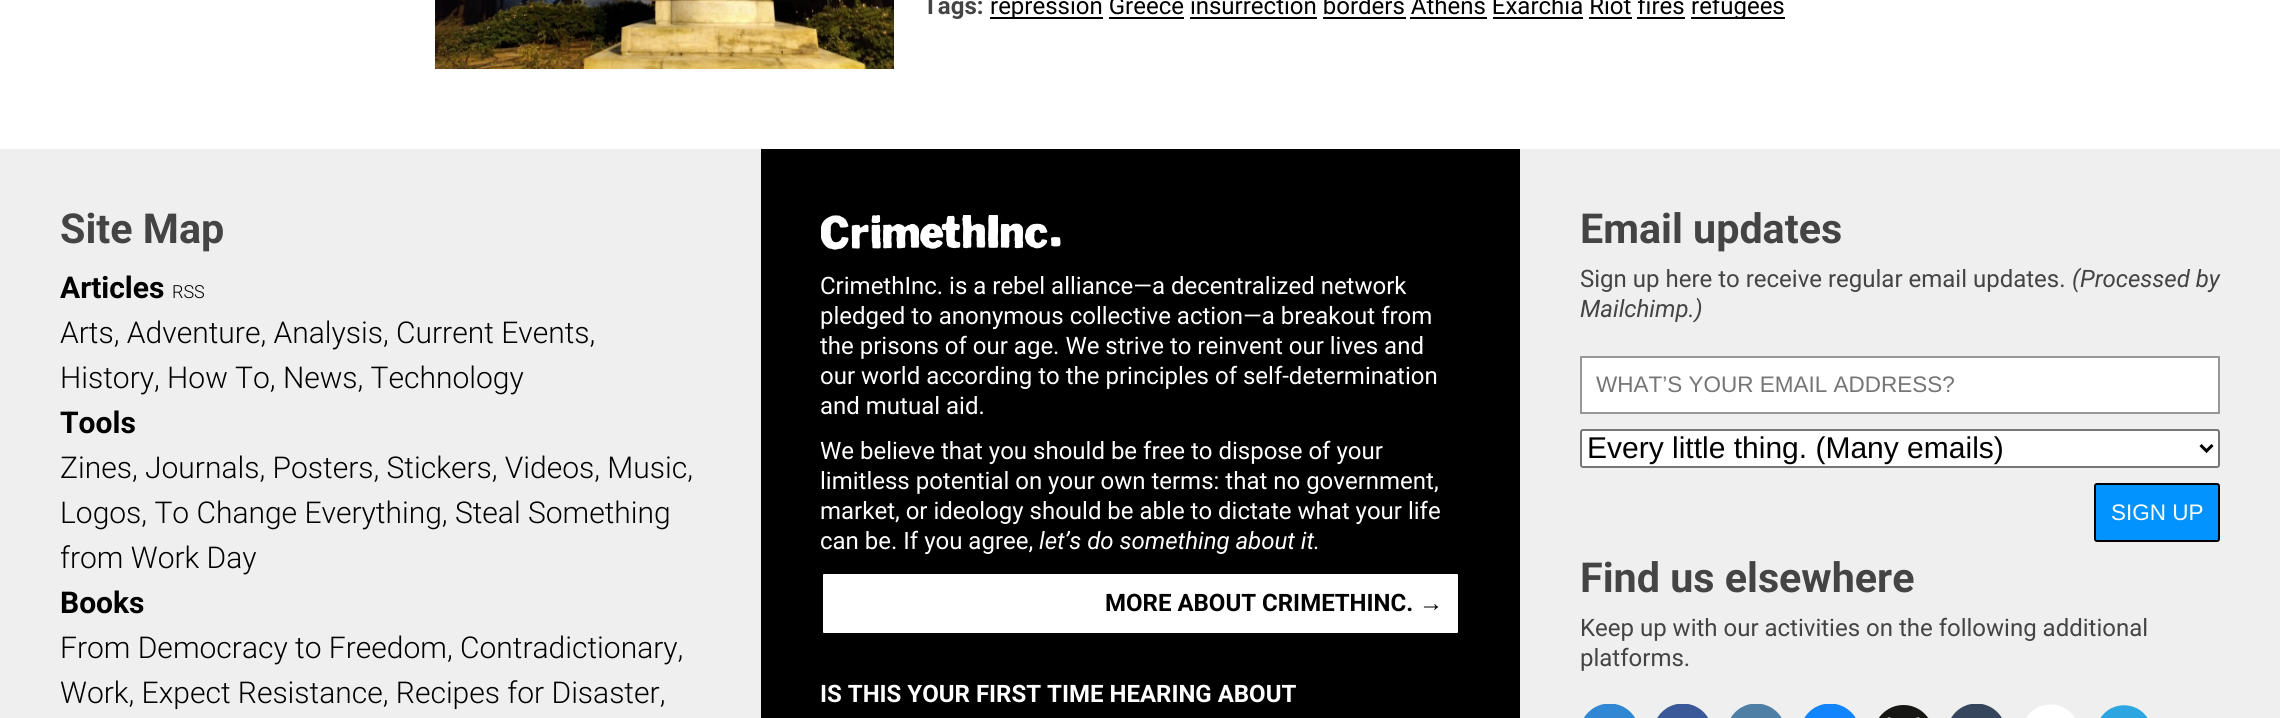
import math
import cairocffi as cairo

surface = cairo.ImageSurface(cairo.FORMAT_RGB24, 2280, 718)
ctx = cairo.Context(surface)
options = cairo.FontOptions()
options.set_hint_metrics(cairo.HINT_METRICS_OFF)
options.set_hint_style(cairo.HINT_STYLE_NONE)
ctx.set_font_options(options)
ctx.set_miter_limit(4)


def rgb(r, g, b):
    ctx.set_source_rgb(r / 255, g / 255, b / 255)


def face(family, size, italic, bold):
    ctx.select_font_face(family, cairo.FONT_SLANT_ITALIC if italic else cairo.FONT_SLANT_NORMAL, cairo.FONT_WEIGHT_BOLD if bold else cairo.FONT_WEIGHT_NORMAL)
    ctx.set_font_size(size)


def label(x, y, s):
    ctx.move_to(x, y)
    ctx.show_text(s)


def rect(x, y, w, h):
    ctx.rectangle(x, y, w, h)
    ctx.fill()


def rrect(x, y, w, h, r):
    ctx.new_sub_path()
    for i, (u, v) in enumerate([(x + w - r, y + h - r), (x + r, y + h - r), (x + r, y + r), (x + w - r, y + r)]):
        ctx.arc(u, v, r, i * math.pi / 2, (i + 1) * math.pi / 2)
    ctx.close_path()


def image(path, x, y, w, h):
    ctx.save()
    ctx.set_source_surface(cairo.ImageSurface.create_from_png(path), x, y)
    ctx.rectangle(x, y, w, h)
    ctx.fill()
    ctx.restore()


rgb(255, 255, 255)
ctx.paint()
image('image0.png', 435, 0, 459, 69)
face('Roboto', 24, 0, 1)
rgb(68, 68, 68)
label(923, 14, 'Tags:')
rgb(0, 0, 0)
rect(990, 17, 113, 2)
face('Roboto', 24, 0, 0)
label(990, 14, 'repression Greece insurrection borders Athens Exarchia Riot fires')
rect(1691, 17, 94, 2)
label(1691, 14, 'refugees')
rect(1109, 17, 75, 2)
rect(1190, 17, 127, 2)
rect(1323, 17, 83, 2)
rect(1410, 17, 77, 2)
rect(1493, 17, 90, 2)
rect(1589, 17, 43, 2)
rect(1637, 17, 48, 2)
rgb(239, 239, 239)
rect(0, 149, 2280, 569)
face('Roboto', 41.25, 0, 1)
rgb(68, 68, 68)
label(60, 243, 'Site Map')
face('Roboto', 30, 0, 1)
rgb(0, 0, 0)
label(60, 298, 'Articles')
face('Roboto Light', 18, 0, 0)
label(172, 298, 'RSS')
face('Roboto Light', 30, 0, 0)
label(60, 343, 'Arts, Adventure, Analysis, Current Events,')
label(60, 388, 'History, How To, News, Technology')
face('Roboto', 30, 0, 1)
label(60, 433, 'Tools')
face('Roboto Light', 30, 0, 0)
label(60, 478, 'Zines, Journals, Posters, Stickers, Videos, Music,')
label(60, 523, 'Logos, To Change Everything, Steal Something')
label(60, 568, 'from Work Day')
face('Roboto', 30, 0, 1)
label(60, 613, 'Books')
face('Roboto Light', 30, 0, 0)
label(60, 658, 'From Democracy to Freedom, Contradictionary,')
label(60, 703, 'Work, Expect Resistance, Recipes for Disaster,')
rect(761, 149, 759, 569)
image('image1.png', 821, 215, 240, 35)
face('Roboto', 24, 0, 0)
rgb(255, 255, 255)
label(820, 294, 'CrimethInc. is a rebel alliance—a decentralized network')
label(820, 324, 'pledged to anonymous collective action—a breakout from')
label(820, 354, 'the prisons of our age. We strive to reinvent our lives and')
label(820, 384, 'our world according to the principles of self-determination')
label(820, 414, 'and mutual aid.')
label(820, 459, 'We believe that you should be free to dispose of your')
label(820, 489, 'limitless potential on your own terms: that no government,')
label(820, 519, 'market, or ideology should be able to dictate what your life')
label(820, 549, 'can be. If you agree,')
face('Roboto', 24, 1, 0)
label(1039, 549, 'let’s do something about it.')
rrect(822, 573, 637, 61, 2)
ctx.fill_preserve()
rgb(0, 0, 0)
ctx.stroke()
face('Roboto', 24, 0, 1)
label(1105, 611, 'MORE ABOUT CRIMETHINC.')
face('Liberation Sans', 24, 0, 1)
label(1419, 611, '→')
face('Roboto', 24, 0, 1)
rgb(255, 255, 255)
label(820, 702, 'IS THIS YOUR FIRST TIME HEARING ABOUT')
face('Roboto', 41.25, 0, 1)
rgb(68, 68, 68)
label(1580, 243, 'Email updates')
face('Roboto', 24, 0, 0)
label(1580, 287, 'Sign up here to receive regular email updates.')
face('Roboto', 24, 1, 0)
label(2072, 287, '(Processed by')
label(1580, 317, 'Mailchimp.)')
rgb(255, 255, 255)
ctx.rectangle(1581, 357, 638, 56)
ctx.fill_preserve()
rgb(151, 151, 151)
ctx.stroke()
face('Liberation Sans', 22.5, 0, 0)
rgb(117, 117, 117)
label(1596, 392, 'WHAT’S YOUR EMAIL ADDRESS?')
rgb(255, 255, 255)
rrect(1581, 430, 638, 37, 2)
ctx.fill_preserve()
rgb(118, 118, 118)
ctx.stroke()
ctx.new_path()
ctx.move_to(2200.5, 445)
ctx.line_to(2206.5, 451)
ctx.line_to(2212.5, 445)
rgb(0, 0, 0)
ctx.set_line_width(3)
ctx.stroke()
face('Liberation Sans', 30, 0, 0)
label(1587, 458, 'Every little thing. (Many emails)')
rgb(2, 147, 255)
rrect(2095, 484, 124, 57, 2)
ctx.fill_preserve()
rgb(0, 0, 0)
ctx.set_line_width(2)
ctx.stroke()
face('Liberation Sans', 22.5, 0, 0)
rgb(255, 255, 255)
label(2111, 520, 'SIGN UP')
face('Roboto', 41.25, 0, 1)
rgb(68, 68, 68)
label(1580, 592, 'Find us elsewhere')
face('Roboto', 24, 0, 0)
label(1580, 636, 'Keep up with our activities on the following additional')
label(1580, 666, 'platforms.')
image('image2.png', 1584, 704, 51, 14)
image('image3.png', 1657, 704, 52, 14)
image('image4.png', 1730, 704, 52, 14)
image('image5.png', 1804, 704, 52, 14)
image('image6.png', 1878, 705, 51, 13)
image('image7.png', 1951, 704, 51, 14)
rgb(255, 255, 255)
ctx.arc(2050.5, 733.5, 29, 0, 2 * math.pi)
ctx.fill()
image('image8.png', 2100, 705, 48, 13)
surface.write_to_png('render.png')
